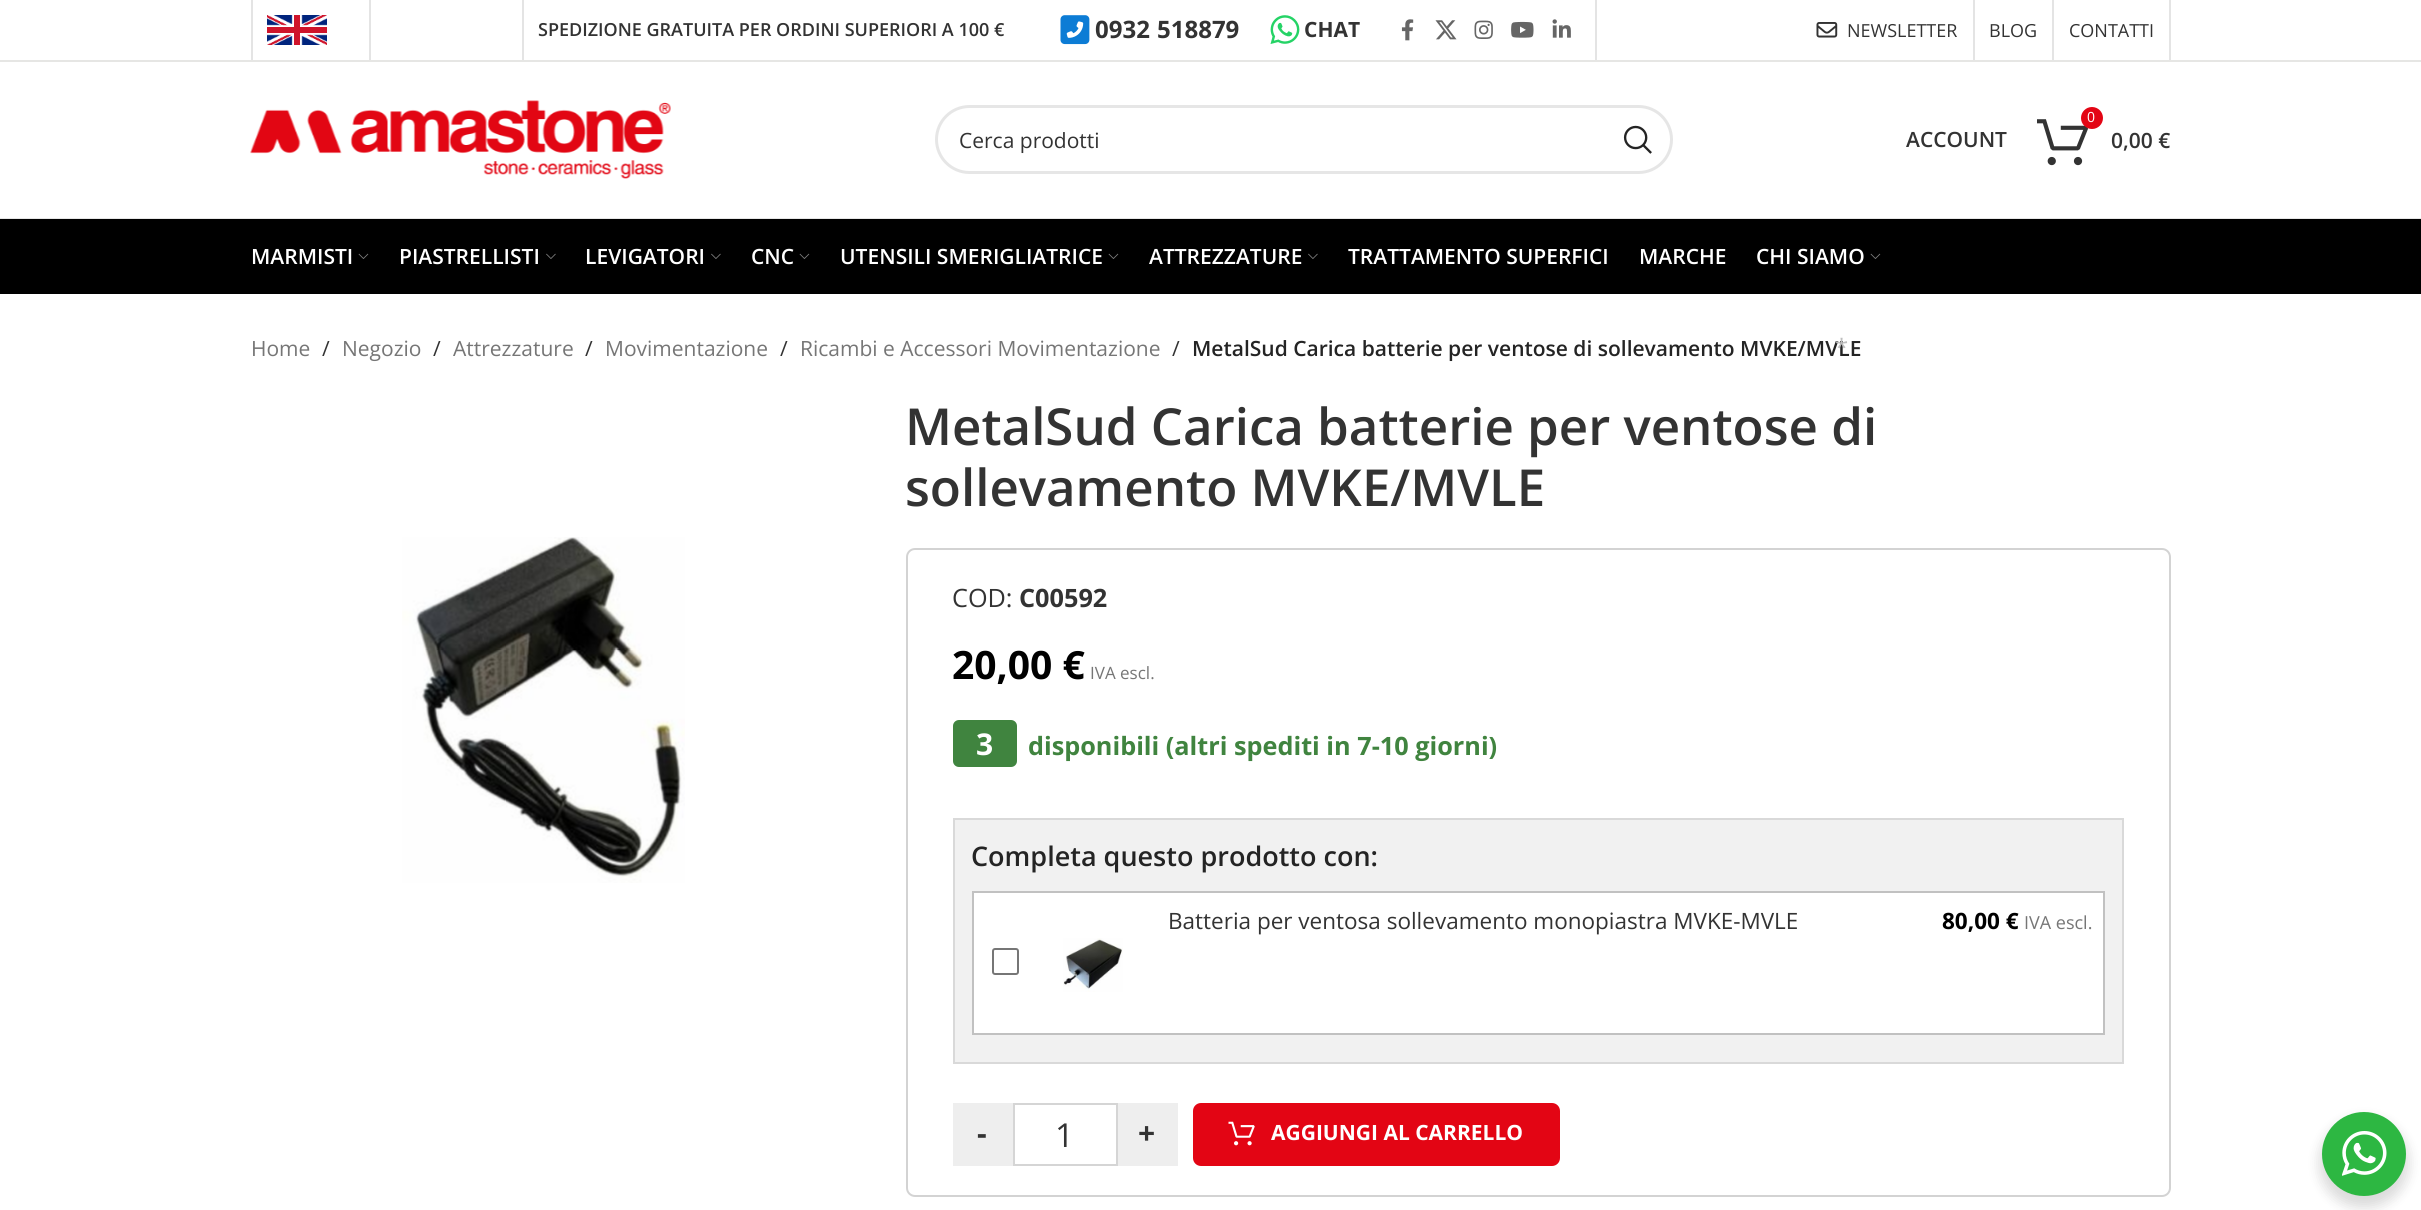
import math
import cairocffi as cairo

surface = cairo.ImageSurface(cairo.FORMAT_RGB24, 2421, 1210)
ctx = cairo.Context(surface)
options = cairo.FontOptions()
options.set_hint_metrics(cairo.HINT_METRICS_OFF)
options.set_hint_style(cairo.HINT_STYLE_NONE)
ctx.set_font_options(options)
ctx.set_miter_limit(4)


def rgb(r, g, b):
    ctx.set_source_rgb(r / 255, g / 255, b / 255)


def face(family, size, italic, bold):
    ctx.select_font_face(family, cairo.FONT_SLANT_ITALIC if italic else cairo.FONT_SLANT_NORMAL, cairo.FONT_WEIGHT_BOLD if bold else cairo.FONT_WEIGHT_NORMAL)
    ctx.set_font_size(size)


def label(x, y, s):
    ctx.move_to(x, y)
    ctx.show_text(s)


def rect(x, y, w, h):
    ctx.rectangle(x, y, w, h)
    ctx.fill()


def rrect(x, y, w, h, r):
    ctx.new_sub_path()
    for i, (u, v) in enumerate([(x + w - r, y + h - r), (x + r, y + h - r), (x + r, y + r), (x + w - r, y + r)]):
        ctx.arc(u, v, r, i * math.pi / 2, (i + 1) * math.pi / 2)
    ctx.close_path()


def soft_shadow(x, y, w, h, r, blur, alpha):
    ctx.push_group_with_content(cairo.CONTENT_ALPHA)
    ctx.set_operator(cairo.OPERATOR_SOURCE)
    for i in range(15, -16, -2):
        e = blur * i / 6
        if min(w, h) + 2 * e > 0:
            ctx.set_source_rgba(0, 0, 0, alpha * math.erfc((i - 1) / 8.5) / 2)
            rrect(x - e, y - e, w + 2 * e, h + 2 * e, max(0, min(r + e + blur * .6, min(w, h) / 2 + e)))
            ctx.fill()
    ctx.mask(ctx.pop_group())


def image(path, x, y, w, h):
    ctx.save()
    ctx.set_source_surface(cairo.ImageSurface.create_from_png(path), x, y)
    ctx.rectangle(x, y, w, h)
    ctx.fill()
    ctx.restore()


rgb(255, 255, 255)
ctx.paint()
rgb(230, 230, 228)
rect(0, 60, 2421, 2)
rgb(228, 228, 228)
rect(251, 0, 2, 60)
image('image0.png', 267, 15, 60, 30)
rect(369, 0, 2, 60)
rect(522, 0, 2, 60)
face('Open Sans SemiBold', 18, 0, 0)
rgb(51, 51, 51)
label(538, 36, 'SPEDIZIONE GRATUITA PER ORDINI SUPERIORI A 100 €')
image('image1.png', 1060, 15, 30, 30)
face('Open Sans', 24, 0, 1)
label(1095, 38, '0932')
label(1157, 38, '518879')
image('image2.png', 1270, 15, 30, 29)
face('Open Sans', 21, 0, 1)
label(1304, 37, 'CHAT')
image('image3.png', 1401, 19, 13, 22)
image('image4.png', 1435, 20, 22, 20)
image('image5.png', 1474, 20, 19, 19)
image('image6.png', 1511, 21, 23, 17)
image('image7.png', 1552, 19, 19, 19)
rgb(228, 228, 228)
rect(1595, 0, 2, 60)
image('image8.png', 1816, 22, 22, 16)
face('Open Sans', 18, 0, 0)
rgb(51, 51, 51)
label(1847, 37, 'NEWSLETTER')
rgb(228, 228, 228)
rect(1973, 0, 2, 60)
rgb(51, 51, 51)
label(1989, 37, 'BLOG')
rgb(228, 228, 228)
rect(2052, 0, 2, 60)
rgb(51, 51, 51)
label(2069, 37, 'CONTATTI')
rgb(228, 228, 228)
rect(2169, 0, 2, 60)
rgb(230, 230, 230)
rect(0, 218, 2421, 1)
image('image9.png', 250, 100, 421, 79)
rrect(936.5, 106.5, 735, 66, 33)
ctx.set_line_width(3)
ctx.stroke()
face('Open Sans', 21, 0, 0)
rgb(51, 51, 51)
label(959, 148, 'Cerca prodotti')
image('image10.png', 1623, 125, 29, 29)
face('Open Sans SemiBold', 21, 0, 0)
label(1906, 147, 'ACCOUNT')
rgb(36, 36, 36)
label(1192, 356, 'MetalSud Carica batterie per ventose di sollevamento MVKE/MVLE')
face('Open Sans', 24, 0, 0)
rgb(190, 190, 190)
label(1835, 356, '*')
image('image11.png', 2037, 119, 52, 47)
rgb(227, 5, 20)
ctx.arc(2092, 118, 11, 0, 2 * math.pi)
ctx.fill()
face('Open Sans', 14, 0, 0)
rgb(255, 255, 255)
label(2087, 122, '0')
face('Open Sans SemiBold', 21, 0, 0)
rgb(51, 51, 51)
label(2111, 148, '0,00 €')
rgb(0, 0, 0)
rect(0, 219, 2421, 75)
rgb(255, 255, 255)
label(251, 264, 'MARMISTI')
image('image12.png', 358, 253, 11, 6)
label(399, 264, 'PIASTRELLISTI')
image('image13.png', 546, 253, 10, 6)
label(585, 264, 'LEVIGATORI')
image('image13.png', 711, 253, 10, 6)
label(751, 264, 'CNC')
image('image12.png', 799, 253, 11, 6)
label(840, 264, 'UTENSILI SMERIGLIATRICE')
image('image12.png', 1108, 253, 11, 6)
label(1149, 264, 'ATTREZZATURE')
image('image13.png', 1308, 253, 10, 6)
label(1348, 264, 'TRATTAMENTO SUPERFICI')
label(1639, 264, 'MARCHE')
label(1756, 264, 'CHI SIAMO')
image('image12.png', 1870, 253, 11, 6)
face('Open Sans', 21, 0, 0)
rgb(118, 118, 118)
label(251, 356, 'Home')
rgb(51, 51, 51)
label(322, 356, '/')
rgb(118, 118, 118)
label(342, 356, 'Negozio')
rgb(51, 51, 51)
label(433, 356, '/')
rgb(118, 118, 118)
label(453, 356, 'Attrezzature')
rgb(51, 51, 51)
label(585, 356, '/')
rgb(118, 118, 118)
label(605, 356, 'Movimentazione')
rgb(51, 51, 51)
label(780, 356, '/')
rgb(118, 118, 118)
label(800, 356, 'Ricambi e Accessori Movimentazione')
rgb(51, 51, 51)
label(1172, 356, '/')
image('image14.png', 402, 537, 283, 346)
face('Open Sans SemiBold', 51, 0, 0)
label(905, 445, 'MetalSud Carica batterie per ventose di')
label(905, 506, 'sollevamento MVKE/MVLE')
rrect(907, 549, 1263, 647, 8)
rgb(211, 211, 211)
ctx.set_line_width(2)
ctx.stroke()
face('Open Sans', 25.25, 0, 0)
rgb(51, 51, 51)
label(952, 607, 'COD:')
face('Open Sans', 25.25, 0, 1)
label(1019, 607, 'C00592')
face('Open Sans', 39, 0, 1)
rgb(0, 0, 0)
label(952, 679, '20,00 €')
face('Open Sans', 17, 0, 0)
rgb(118, 118, 118)
label(1090, 679, 'IVA escl.')
rgb(64, 132, 63)
rrect(953, 720, 64, 47, 6)
ctx.fill()
face('Open Sans', 30, 0, 1)
rgb(255, 255, 255)
label(976, 755, '3')
face('Open Sans', 25.25, 0, 1)
rgb(64, 132, 63)
label(1028, 755, 'disponibili (altri spediti in 7-10 giorni)')
rgb(241, 241, 241)
ctx.rectangle(954, 819, 1169, 244)
ctx.fill_preserve()
rgb(217, 217, 217)
ctx.stroke()
face('Open Sans SemiBold', 27, 0, 0)
rgb(36, 36, 36)
label(971, 866, 'Completa questo prodotto con:')
rgb(255, 255, 255)
ctx.rectangle(973, 892, 1131, 142)
ctx.fill_preserve()
rgb(193, 193, 193)
ctx.stroke()
face('Open Sans', 22.5, 0, 0)
rgb(51, 51, 51)
label(1168, 929, 'Batteria per ventosa sollevamento monopiastra MVKE-MVLE')
face('Open Sans', 22.5, 0, 1)
rgb(0, 0, 0)
label(1942, 929, '80,00 €')
face('Open Sans', 18, 0, 0)
rgb(118, 118, 118)
label(2024, 929, 'IVA escl.')
image('image15.png', 1063, 938, 60, 54)
rrect(993, 949, 25, 25, 2)
ctx.stroke()
rgb(238, 238, 238)
rect(953, 1103, 60, 63)
face('Open Sans', 30, 0, 1)
rgb(51, 51, 51)
label(977, 1144, '-')
ctx.rectangle(1014, 1104, 103, 61)
rgb(213, 213, 213)
ctx.stroke()
face('Open Sans', 33, 0, 0)
rgb(51, 51, 51)
label(1055, 1147, '1')
rgb(238, 238, 238)
rect(1118, 1103, 60, 63)
face('Open Sans', 30, 0, 1)
rgb(51, 51, 51)
label(1138, 1144, '+')
rgb(227, 5, 20)
rrect(1193, 1103, 367, 63, 8)
ctx.fill()
image('image16.png', 1228, 1121, 27, 25)
face('Open Sans', 21, 0, 1)
rgb(255, 255, 255)
label(1271, 1140, 'AGGIUNGI AL CARRELLO')
rgb(0, 0, 0)
soft_shadow(2319, 1118, 90, 90, 45, 6, 0.14)
rgb(45, 183, 66)
ctx.arc(2364, 1154, 42, 0, 2 * math.pi)
ctx.fill()
image('image17.png', 2342, 1131, 45, 45)
surface.write_to_png('render.png')
